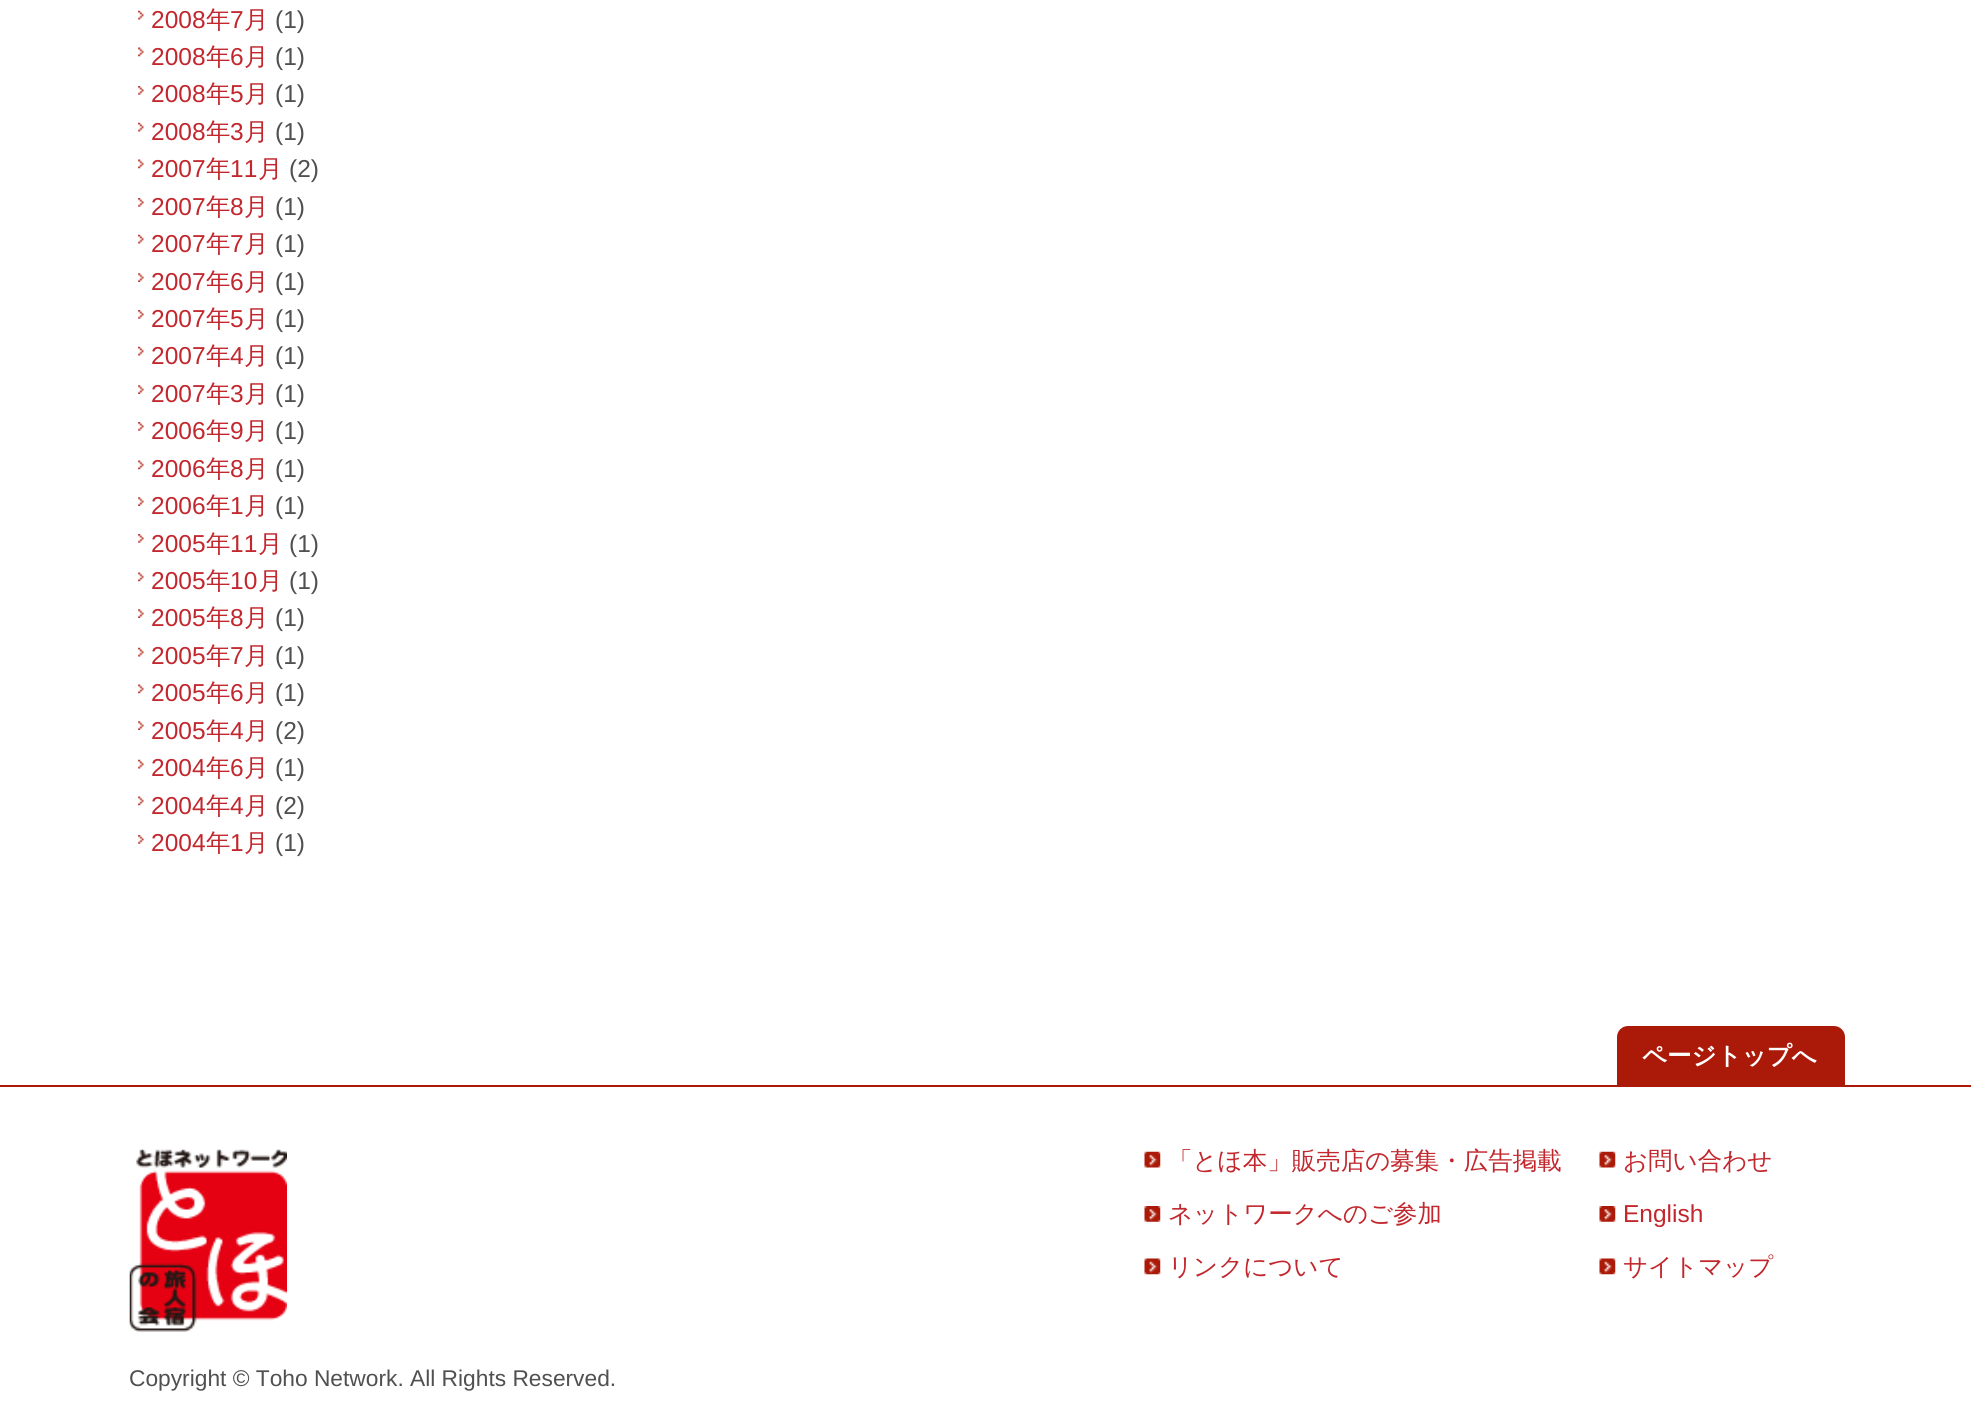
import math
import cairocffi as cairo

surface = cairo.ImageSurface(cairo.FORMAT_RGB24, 1971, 1425)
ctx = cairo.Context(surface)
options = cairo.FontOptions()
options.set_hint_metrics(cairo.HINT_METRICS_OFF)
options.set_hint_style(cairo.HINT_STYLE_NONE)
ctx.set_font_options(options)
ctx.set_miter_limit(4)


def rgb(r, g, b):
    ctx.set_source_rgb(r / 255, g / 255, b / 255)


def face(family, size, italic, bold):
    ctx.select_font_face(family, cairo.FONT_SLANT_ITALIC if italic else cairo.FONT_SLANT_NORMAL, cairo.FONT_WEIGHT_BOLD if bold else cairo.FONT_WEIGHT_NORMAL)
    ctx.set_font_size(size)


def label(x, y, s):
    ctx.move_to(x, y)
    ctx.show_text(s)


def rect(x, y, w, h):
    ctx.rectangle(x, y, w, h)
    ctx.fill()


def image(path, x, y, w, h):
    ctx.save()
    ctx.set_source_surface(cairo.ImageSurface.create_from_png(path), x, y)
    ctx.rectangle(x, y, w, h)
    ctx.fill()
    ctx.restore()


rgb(255, 255, 255)
ctx.paint()
image('image0.png', 138, 10, 6, 10)
face('Liberation Sans', 24.5, 0, 0)
rgb(193, 39, 45)
label(151, 28, '2008')
face('WenQuanYi Zen Hei Medium', 24.5, 0, 0)
label(206, 28, '年')
face('Liberation Sans', 24.5, 0, 0)
label(230, 28, '7')
face('WenQuanYi Zen Hei Medium', 24.5, 0, 0)
label(244, 28, '月')
face('Liberation Sans', 24.5, 0, 0)
rgb(80, 80, 80)
label(275, 28, '(1)')
image('image1.png', 138, 47, 6, 10)
rgb(193, 39, 45)
label(151, 65, '2008')
face('WenQuanYi Zen Hei Medium', 24.5, 0, 0)
label(206, 65, '年')
face('Liberation Sans', 24.5, 0, 0)
label(230, 65, '6')
face('WenQuanYi Zen Hei Medium', 24.5, 0, 0)
label(244, 65, '月')
face('Liberation Sans', 24.5, 0, 0)
rgb(80, 80, 80)
label(275, 65, '(1)')
image('image2.png', 138, 86, 6, 9)
rgb(193, 39, 45)
label(151, 102, '2008')
face('WenQuanYi Zen Hei Medium', 24.5, 0, 0)
label(206, 102, '年')
face('Liberation Sans', 24.5, 0, 0)
label(230, 102, '5')
face('WenQuanYi Zen Hei Medium', 24.5, 0, 0)
label(244, 102, '月')
face('Liberation Sans', 24.5, 0, 0)
rgb(80, 80, 80)
label(275, 102, '(1)')
image('image0.png', 138, 122, 6, 10)
rgb(193, 39, 45)
label(151, 140, '2008')
face('WenQuanYi Zen Hei Medium', 24.5, 0, 0)
label(206, 140, '年')
face('Liberation Sans', 24.5, 0, 0)
label(230, 140, '3')
face('WenQuanYi Zen Hei Medium', 24.5, 0, 0)
label(244, 140, '月')
face('Liberation Sans', 24.5, 0, 0)
rgb(80, 80, 80)
label(275, 140, '(1)')
image('image1.png', 138, 159, 6, 10)
rgb(193, 39, 45)
label(151, 177, '2007')
face('WenQuanYi Zen Hei Medium', 24.5, 0, 0)
label(206, 177, '年')
face('Liberation Sans', 24.5, 0, 0)
label(230, 177, '11')
face('WenQuanYi Zen Hei Medium', 24.5, 0, 0)
label(258, 177, '月')
face('Liberation Sans', 24.5, 0, 0)
rgb(80, 80, 80)
label(289, 177, '(2)')
image('image2.png', 138, 198, 6, 9)
rgb(193, 39, 45)
label(151, 215, '2007')
face('WenQuanYi Zen Hei Medium', 24.5, 0, 0)
label(206, 215, '年')
face('Liberation Sans', 24.5, 0, 0)
label(230, 215, '8')
face('WenQuanYi Zen Hei Medium', 24.5, 0, 0)
label(244, 215, '月')
face('Liberation Sans', 24.5, 0, 0)
rgb(80, 80, 80)
label(275, 215, '(1)')
image('image0.png', 138, 234, 6, 10)
rgb(193, 39, 45)
label(151, 252, '2007')
face('WenQuanYi Zen Hei Medium', 24.5, 0, 0)
label(206, 252, '年')
face('Liberation Sans', 24.5, 0, 0)
label(230, 252, '7')
face('WenQuanYi Zen Hei Medium', 24.5, 0, 0)
label(244, 252, '月')
face('Liberation Sans', 24.5, 0, 0)
rgb(80, 80, 80)
label(275, 252, '(1)')
image('image3.png', 138, 273, 6, 9)
rgb(193, 39, 45)
label(151, 290, '2007')
face('WenQuanYi Zen Hei Medium', 24.5, 0, 0)
label(206, 290, '年')
face('Liberation Sans', 24.5, 0, 0)
label(230, 290, '6')
face('WenQuanYi Zen Hei Medium', 24.5, 0, 0)
label(244, 290, '月')
face('Liberation Sans', 24.5, 0, 0)
rgb(80, 80, 80)
label(275, 290, '(1)')
image('image2.png', 138, 310, 6, 9)
rgb(193, 39, 45)
label(151, 327, '2007')
face('WenQuanYi Zen Hei Medium', 24.5, 0, 0)
label(206, 327, '年')
face('Liberation Sans', 24.5, 0, 0)
label(230, 327, '5')
face('WenQuanYi Zen Hei Medium', 24.5, 0, 0)
label(244, 327, '月')
face('Liberation Sans', 24.5, 0, 0)
rgb(80, 80, 80)
label(275, 327, '(1)')
image('image0.png', 138, 346, 6, 10)
rgb(193, 39, 45)
label(151, 364, '2007')
face('WenQuanYi Zen Hei Medium', 24.5, 0, 0)
label(206, 364, '年')
face('Liberation Sans', 24.5, 0, 0)
label(230, 364, '4')
face('WenQuanYi Zen Hei Medium', 24.5, 0, 0)
label(244, 364, '月')
face('Liberation Sans', 24.5, 0, 0)
rgb(80, 80, 80)
label(275, 364, '(1)')
image('image3.png', 138, 385, 6, 9)
rgb(193, 39, 45)
label(151, 402, '2007')
face('WenQuanYi Zen Hei Medium', 24.5, 0, 0)
label(206, 402, '年')
face('Liberation Sans', 24.5, 0, 0)
label(230, 402, '3')
face('WenQuanYi Zen Hei Medium', 24.5, 0, 0)
label(244, 402, '月')
face('Liberation Sans', 24.5, 0, 0)
rgb(80, 80, 80)
label(275, 402, '(1)')
image('image2.png', 138, 422, 6, 9)
rgb(193, 39, 45)
label(151, 439, '2006')
face('WenQuanYi Zen Hei Medium', 24.5, 0, 0)
label(206, 439, '年')
face('Liberation Sans', 24.5, 0, 0)
label(230, 439, '9')
face('WenQuanYi Zen Hei Medium', 24.5, 0, 0)
label(244, 439, '月')
face('Liberation Sans', 24.5, 0, 0)
rgb(80, 80, 80)
label(275, 439, '(1)')
image('image1.png', 138, 460, 6, 10)
rgb(193, 39, 45)
label(151, 477, '2006')
face('WenQuanYi Zen Hei Medium', 24.5, 0, 0)
label(206, 477, '年')
face('Liberation Sans', 24.5, 0, 0)
label(230, 477, '8')
face('WenQuanYi Zen Hei Medium', 24.5, 0, 0)
label(244, 477, '月')
face('Liberation Sans', 24.5, 0, 0)
rgb(80, 80, 80)
label(275, 477, '(1)')
image('image3.png', 138, 497, 6, 9)
rgb(193, 39, 45)
label(151, 514, '2006')
face('WenQuanYi Zen Hei Medium', 24.5, 0, 0)
label(206, 514, '年')
face('Liberation Sans', 24.5, 0, 0)
label(230, 514, '1')
face('WenQuanYi Zen Hei Medium', 24.5, 0, 0)
label(244, 514, '月')
face('Liberation Sans', 24.5, 0, 0)
rgb(80, 80, 80)
label(275, 514, '(1)')
image('image2.png', 138, 534, 6, 9)
rgb(193, 39, 45)
label(151, 552, '2005')
face('WenQuanYi Zen Hei Medium', 24.5, 0, 0)
label(206, 552, '年')
face('Liberation Sans', 24.5, 0, 0)
label(230, 552, '11')
face('WenQuanYi Zen Hei Medium', 24.5, 0, 0)
label(258, 552, '月')
face('Liberation Sans', 24.5, 0, 0)
rgb(80, 80, 80)
label(289, 552, '(1)')
image('image1.png', 138, 572, 6, 10)
rgb(193, 39, 45)
label(151, 589, '2005')
face('WenQuanYi Zen Hei Medium', 24.5, 0, 0)
label(206, 589, '年')
face('Liberation Sans', 24.5, 0, 0)
label(230, 589, '10')
face('WenQuanYi Zen Hei Medium', 24.5, 0, 0)
label(258, 589, '月')
face('Liberation Sans', 24.5, 0, 0)
rgb(80, 80, 80)
label(289, 589, '(1)')
image('image3.png', 138, 609, 6, 9)
rgb(193, 39, 45)
label(151, 626, '2005')
face('WenQuanYi Zen Hei Medium', 24.5, 0, 0)
label(206, 626, '年')
face('Liberation Sans', 24.5, 0, 0)
label(230, 626, '8')
face('WenQuanYi Zen Hei Medium', 24.5, 0, 0)
label(244, 626, '月')
face('Liberation Sans', 24.5, 0, 0)
rgb(80, 80, 80)
label(275, 626, '(1)')
image('image0.png', 138, 647, 6, 10)
rgb(193, 39, 45)
label(151, 664, '2005')
face('WenQuanYi Zen Hei Medium', 24.5, 0, 0)
label(206, 664, '年')
face('Liberation Sans', 24.5, 0, 0)
label(230, 664, '7')
face('WenQuanYi Zen Hei Medium', 24.5, 0, 0)
label(244, 664, '月')
face('Liberation Sans', 24.5, 0, 0)
rgb(80, 80, 80)
label(275, 664, '(1)')
image('image1.png', 138, 684, 6, 10)
rgb(193, 39, 45)
label(151, 701, '2005')
face('WenQuanYi Zen Hei Medium', 24.5, 0, 0)
label(206, 701, '年')
face('Liberation Sans', 24.5, 0, 0)
label(230, 701, '6')
face('WenQuanYi Zen Hei Medium', 24.5, 0, 0)
label(244, 701, '月')
face('Liberation Sans', 24.5, 0, 0)
rgb(80, 80, 80)
label(275, 701, '(1)')
image('image3.png', 138, 721, 6, 9)
rgb(193, 39, 45)
label(151, 739, '2005')
face('WenQuanYi Zen Hei Medium', 24.5, 0, 0)
label(206, 739, '年')
face('Liberation Sans', 24.5, 0, 0)
label(230, 739, '4')
face('WenQuanYi Zen Hei Medium', 24.5, 0, 0)
label(244, 739, '月')
face('Liberation Sans', 24.5, 0, 0)
rgb(80, 80, 80)
label(275, 739, '(2)')
image('image0.png', 138, 759, 6, 10)
rgb(193, 39, 45)
label(151, 776, '2004')
face('WenQuanYi Zen Hei Medium', 24.5, 0, 0)
label(206, 776, '年')
face('Liberation Sans', 24.5, 0, 0)
label(230, 776, '6')
face('WenQuanYi Zen Hei Medium', 24.5, 0, 0)
label(244, 776, '月')
face('Liberation Sans', 24.5, 0, 0)
rgb(80, 80, 80)
label(275, 776, '(1)')
image('image1.png', 138, 796, 6, 10)
rgb(193, 39, 45)
label(151, 814, '2004')
face('WenQuanYi Zen Hei Medium', 24.5, 0, 0)
label(206, 814, '年')
face('Liberation Sans', 24.5, 0, 0)
label(230, 814, '4')
face('WenQuanYi Zen Hei Medium', 24.5, 0, 0)
label(244, 814, '月')
face('Liberation Sans', 24.5, 0, 0)
rgb(80, 80, 80)
label(275, 814, '(2)')
image('image2.png', 138, 835, 6, 9)
rgb(193, 39, 45)
label(151, 851, '2004')
face('WenQuanYi Zen Hei Medium', 24.5, 0, 0)
label(206, 851, '年')
face('Liberation Sans', 24.5, 0, 0)
label(230, 851, '1')
face('WenQuanYi Zen Hei Medium', 24.5, 0, 0)
label(244, 851, '月')
face('Liberation Sans', 24.5, 0, 0)
rgb(80, 80, 80)
label(275, 851, '(1)')
rgb(171, 26, 8)
ctx.new_path()
ctx.move_to(1628, 1026)
ctx.line_to(1834, 1026)
ctx.curve_to(1840, 1026, 1845, 1031, 1845, 1037)
ctx.line_to(1845, 1085)
ctx.line_to(1617, 1085)
ctx.line_to(1617, 1037)
ctx.curve_to(1617, 1031, 1622, 1026, 1628, 1026)
ctx.close_path()
ctx.fill()
face('WenQuanYi Zen Hei', 24.5, 0, 1)
rgb(255, 255, 255)
label(1642, 1064, 'ページトップへ')
rgb(171, 26, 8)
rect(0, 1085, 1971, 2)
image('image4.png', 129, 1149, 158, 183)
image('image5.png', 1144, 1151, 17, 17)
face('WenQuanYi Zen Hei Medium', 24.5, 0, 0)
rgb(193, 39, 45)
label(1168, 1169, '「とほ本」販売店の募集・広告掲載')
image('image5.png', 1599, 1151, 17, 17)
label(1623, 1169, 'お問い合わせ')
image('image6.png', 1144, 1206, 17, 16)
label(1168, 1222, 'ネットワークへのご参加')
image('image6.png', 1599, 1206, 17, 16)
face('Liberation Sans', 24.5, 0, 0)
label(1623, 1222, 'English')
image('image7.png', 1144, 1258, 17, 17)
face('WenQuanYi Zen Hei Medium', 24.5, 0, 0)
label(1168, 1275, 'リンクについて')
image('image7.png', 1599, 1258, 17, 17)
label(1623, 1275, 'サイトマップ')
ctx.save()
ctx.rectangle(130, 1332, 1715, 68)
ctx.clip()
face('Liberation Sans', 22.75, 0, 0)
rgb(80, 80, 80)
label(129, 1386, 'Copyright © Toho Network. All Rights Reserved.')
ctx.restore()
surface.write_to_png('render.png')
